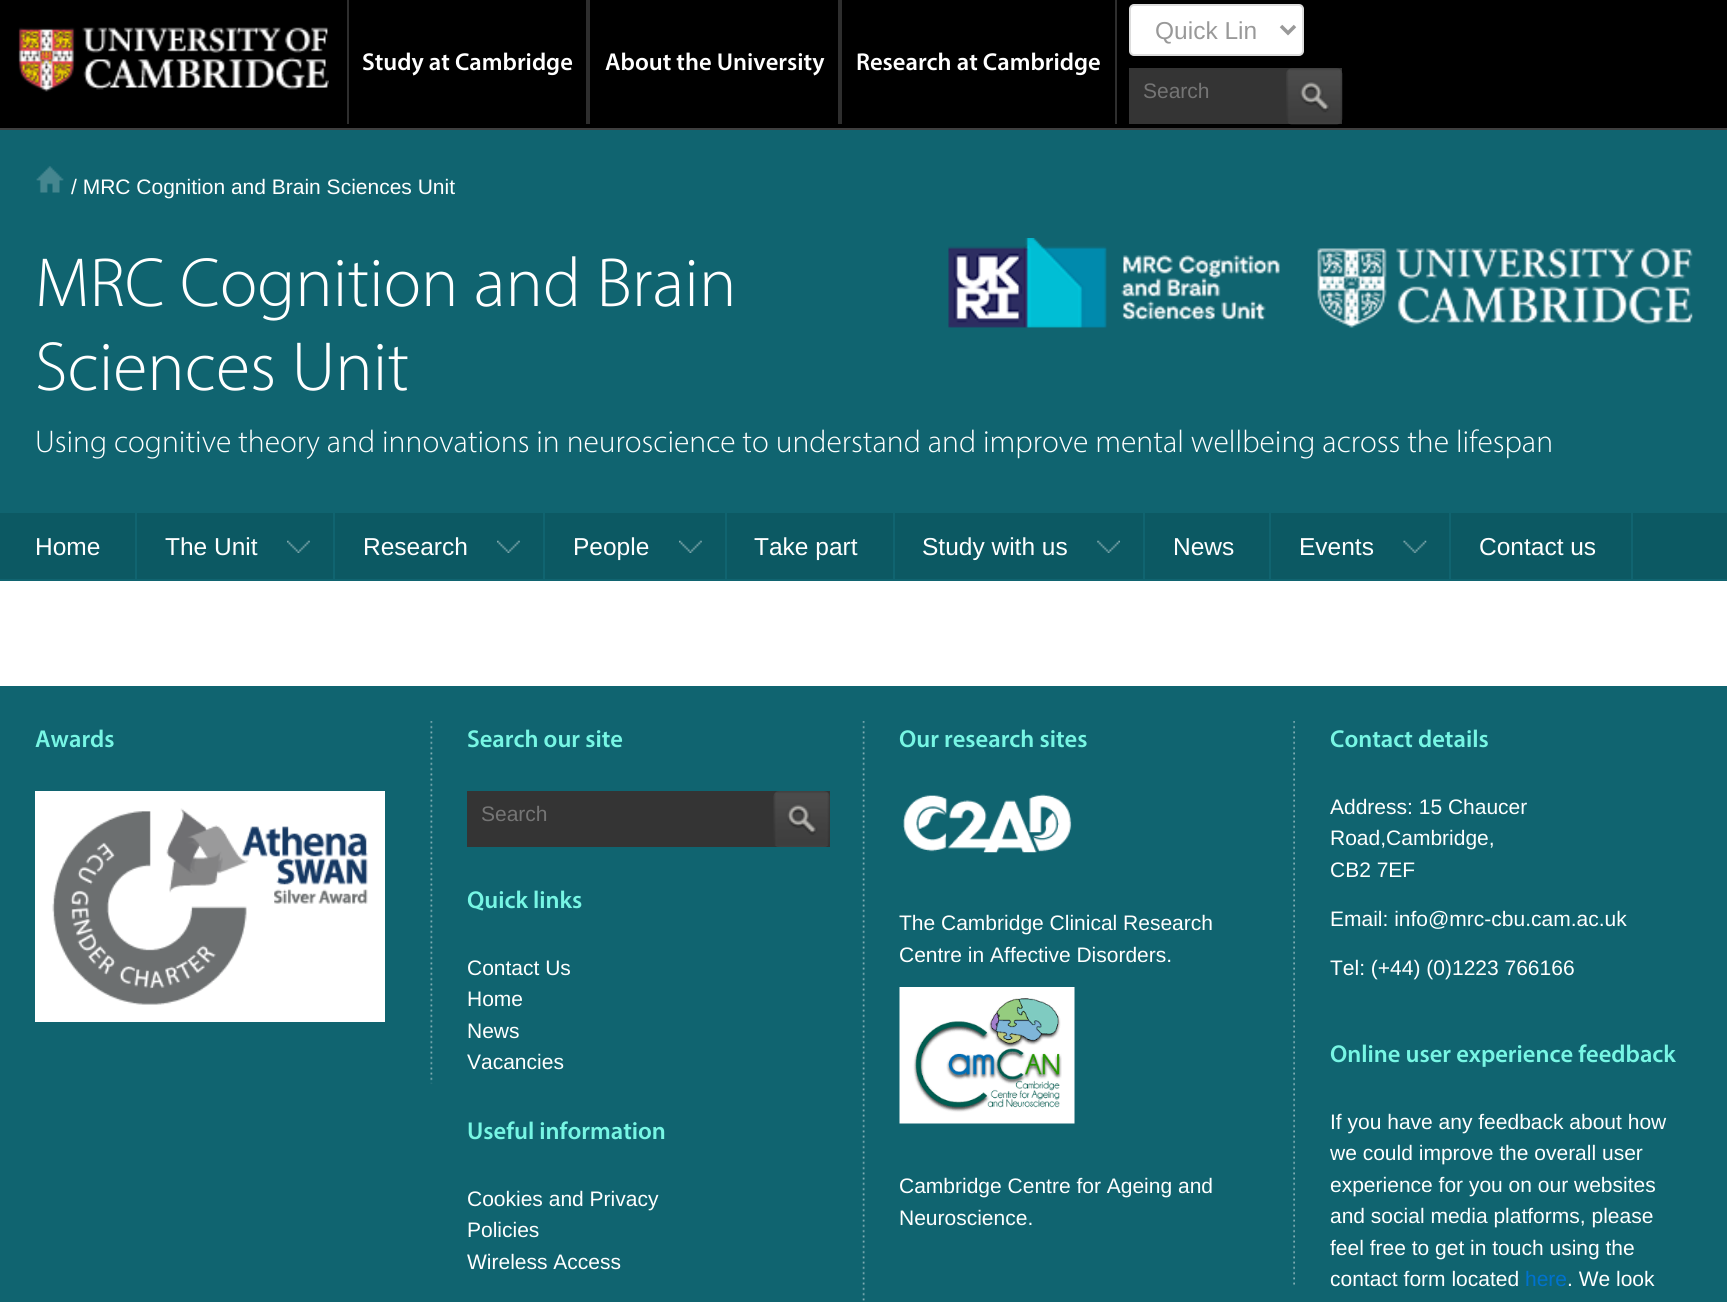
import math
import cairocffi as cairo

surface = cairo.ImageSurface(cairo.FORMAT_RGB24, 1727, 1302)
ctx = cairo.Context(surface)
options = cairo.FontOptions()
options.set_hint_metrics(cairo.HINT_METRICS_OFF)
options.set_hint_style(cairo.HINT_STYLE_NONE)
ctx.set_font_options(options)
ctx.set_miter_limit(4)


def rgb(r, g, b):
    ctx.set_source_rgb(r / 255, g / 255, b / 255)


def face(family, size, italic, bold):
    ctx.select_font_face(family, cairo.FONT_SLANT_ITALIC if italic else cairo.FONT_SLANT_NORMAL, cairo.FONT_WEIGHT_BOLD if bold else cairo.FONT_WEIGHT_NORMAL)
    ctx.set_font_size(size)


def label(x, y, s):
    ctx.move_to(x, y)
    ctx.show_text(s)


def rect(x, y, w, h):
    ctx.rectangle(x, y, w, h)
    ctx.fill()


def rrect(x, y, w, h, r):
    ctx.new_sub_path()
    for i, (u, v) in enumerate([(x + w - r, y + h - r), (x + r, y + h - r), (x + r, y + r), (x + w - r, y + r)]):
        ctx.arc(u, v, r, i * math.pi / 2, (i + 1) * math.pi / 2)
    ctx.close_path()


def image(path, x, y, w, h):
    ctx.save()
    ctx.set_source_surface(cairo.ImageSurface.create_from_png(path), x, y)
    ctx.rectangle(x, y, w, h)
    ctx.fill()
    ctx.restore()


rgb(255, 255, 255)
ctx.paint()
rgb(0, 0, 0)
rect(0, 0, 1727, 128)
rgb(255, 255, 255)
rrect(1130, 5, 173, 50, 4)
ctx.fill_preserve()
rgb(221, 221, 221)
ctx.stroke()
ctx.new_path()
ctx.move_to(1281, 26)
ctx.line_to(1288, 33)
ctx.line_to(1295, 26)
rgb(153, 153, 153)
ctx.set_line_width(3.5)
ctx.stroke()
face('Liberation Sans', 24.5, 0, 0)
label(1155, 39, 'Quick Lin')
image('image0.png', 18, 27, 311, 65)
rgb(46, 46, 46)
rect(586, 0, 4, 124)
rect(347, 0, 2, 124)
face('Myriad SemiBold', 24.5, 0, 0)
rgb(255, 255, 255)
label(362, 70, 'Study at Cambridge')
rgb(46, 46, 46)
rect(838, 0, 4, 124)
rgb(255, 255, 255)
label(605, 70, 'About the University')
rgb(46, 46, 46)
rect(1115, 0, 2, 124)
rgb(255, 255, 255)
label(856, 70, 'Research at Cambridge')
rgb(52, 52, 52)
rect(1129, 68, 213, 56)
face('Liberation Sans', 21, 0, 0)
rgb(117, 117, 117)
label(1143, 98, 'Search')
image('image1.png', 1286, 68, 57, 57)
rgb(63, 63, 63)
rect(0, 128, 1727, 2)
rgb(16, 100, 112)
rect(0, 130, 1727, 383)
image('image2.png', 36, 166, 28, 27)
rgb(255, 255, 255)
label(71, 194, '/ MRC Cognition and Brain Sciences Unit')
face('Myriad Light', 70, 0, 0)
label(35, 306, 'MRC Cognition and Brain')
image('image3.png', 948, 238, 745, 90)
label(35, 390, 'Sciences Unit')
face('Myriad Light', 31.5, 0, 0)
label(35, 452, 'Using cognitive theory and innovations in neuroscience to understand and improve mental wellbeing across the lifespan')
rgb(12, 89, 99)
rect(0, 513, 1727, 66)
rgb(16, 100, 112)
rect(0, 579, 1727, 2)
rect(135, 513, 2, 66)
face('Liberation Sans', 24.5, 0, 0)
rgb(255, 255, 255)
label(35, 555, 'Home')
rgb(16, 100, 112)
rect(333, 513, 2, 66)
rgb(255, 255, 255)
label(165, 555, 'The Unit')
image('image4.png', 287, 540, 23, 13)
rgb(16, 100, 112)
rect(543, 513, 2, 66)
rgb(255, 255, 255)
label(363, 555, 'Research')
image('image4.png', 497, 540, 23, 13)
rgb(16, 100, 112)
rect(725, 513, 2, 66)
rgb(255, 255, 255)
label(573, 555, 'People')
image('image4.png', 679, 540, 23, 13)
rgb(16, 100, 112)
rect(893, 513, 2, 66)
rgb(255, 255, 255)
label(754, 555, 'Take part')
rgb(16, 100, 112)
rect(1143, 513, 2, 66)
rgb(255, 255, 255)
label(922, 555, 'Study with us')
image('image5.png', 1097, 540, 23, 13)
rgb(16, 100, 112)
rect(1269, 513, 2, 66)
rgb(255, 255, 255)
label(1173, 555, 'News')
rgb(16, 100, 112)
rect(1449, 513, 2, 66)
rgb(255, 255, 255)
label(1299, 555, 'Events')
image('image6.png', 1403, 540, 24, 13)
rgb(16, 100, 112)
rect(1631, 513, 2, 66)
rgb(255, 255, 255)
label(1479, 555, 'Contact us')
rgb(16, 100, 112)
rect(0, 686, 1727, 616)
image('image7.png', 430, 721, 3, 363)
face('Myriad SemiBold', 24.5, 0, 0)
rgb(119, 246, 228)
label(35, 747, 'Awards')
rgb(255, 255, 255)
rect(35, 791, 350, 231)
image('image8.png', 52, 808, 316, 197)
image('image9.png', 862, 721, 3, 580)
rgb(119, 246, 228)
label(467, 747, 'Search our site')
rgb(52, 52, 52)
rect(467, 791, 363, 56)
face('Liberation Sans', 21, 0, 0)
rgb(117, 117, 117)
label(481, 821, 'Search')
image('image10.png', 773, 791, 57, 56)
face('Myriad SemiBold', 24.5, 0, 0)
rgb(119, 246, 228)
label(467, 908, 'Quick links')
face('Liberation Sans', 21, 0, 0)
rgb(255, 255, 255)
label(467, 975, 'Contact Us')
label(467, 1006, 'Home')
label(467, 1038, 'News')
label(467, 1069, 'Vacancies')
face('Myriad SemiBold', 24.5, 0, 0)
rgb(119, 246, 228)
label(467, 1139, 'Useful information')
face('Liberation Sans', 21, 0, 0)
rgb(255, 255, 255)
label(467, 1206, 'Cookies and Privacy')
label(467, 1237, 'Policies')
label(467, 1269, 'Wireless Access')
image('image11.png', 1293, 721, 2, 564)
face('Myriad SemiBold', 24.5, 0, 0)
rgb(119, 246, 228)
label(899, 747, 'Our research sites')
image('image12.png', 903, 794, 169, 59)
face('Liberation Sans', 21, 0, 0)
rgb(255, 255, 255)
label(899, 930, 'The Cambridge Clinical Research')
label(899, 962, 'Centre in Affective Disorders.')
image('image13.png', 899, 987, 176, 137)
label(899, 1193, 'Cambridge Centre for Ageing and')
label(899, 1225, 'Neuroscience.')
face('Myriad SemiBold', 24.5, 0, 0)
rgb(119, 246, 228)
label(1330, 747, 'Contact details')
face('Liberation Sans', 21, 0, 0)
rgb(255, 255, 255)
label(1330, 814, 'Address: 15 Chaucer')
label(1330, 845, 'Road,Cambridge,')
label(1330, 877, 'CB2 7EF')
label(1330, 926, 'Email: info@mrc-cbu.cam.ac.uk')
label(1330, 975, 'Tel: (+44) (0)1223 766166')
face('Myriad SemiBold', 24.5, 0, 0)
rgb(119, 246, 228)
label(1330, 1062, 'Online user experience feedback')
face('Liberation Sans', 21, 0, 0)
rgb(255, 255, 255)
label(1330, 1129, 'If you have any feedback about how')
label(1330, 1160, 'we could improve the overall user')
label(1330, 1192, 'experience for you on our websites')
label(1330, 1223, 'and social media platforms, please')
label(1330, 1255, 'feel free to get in touch using the')
label(1330, 1286, 'contact form located')
rgb(0, 114, 207)
label(1525, 1286, 'here')
rgb(255, 255, 255)
label(1567, 1286, '. We look')
surface.write_to_png('render.png')
